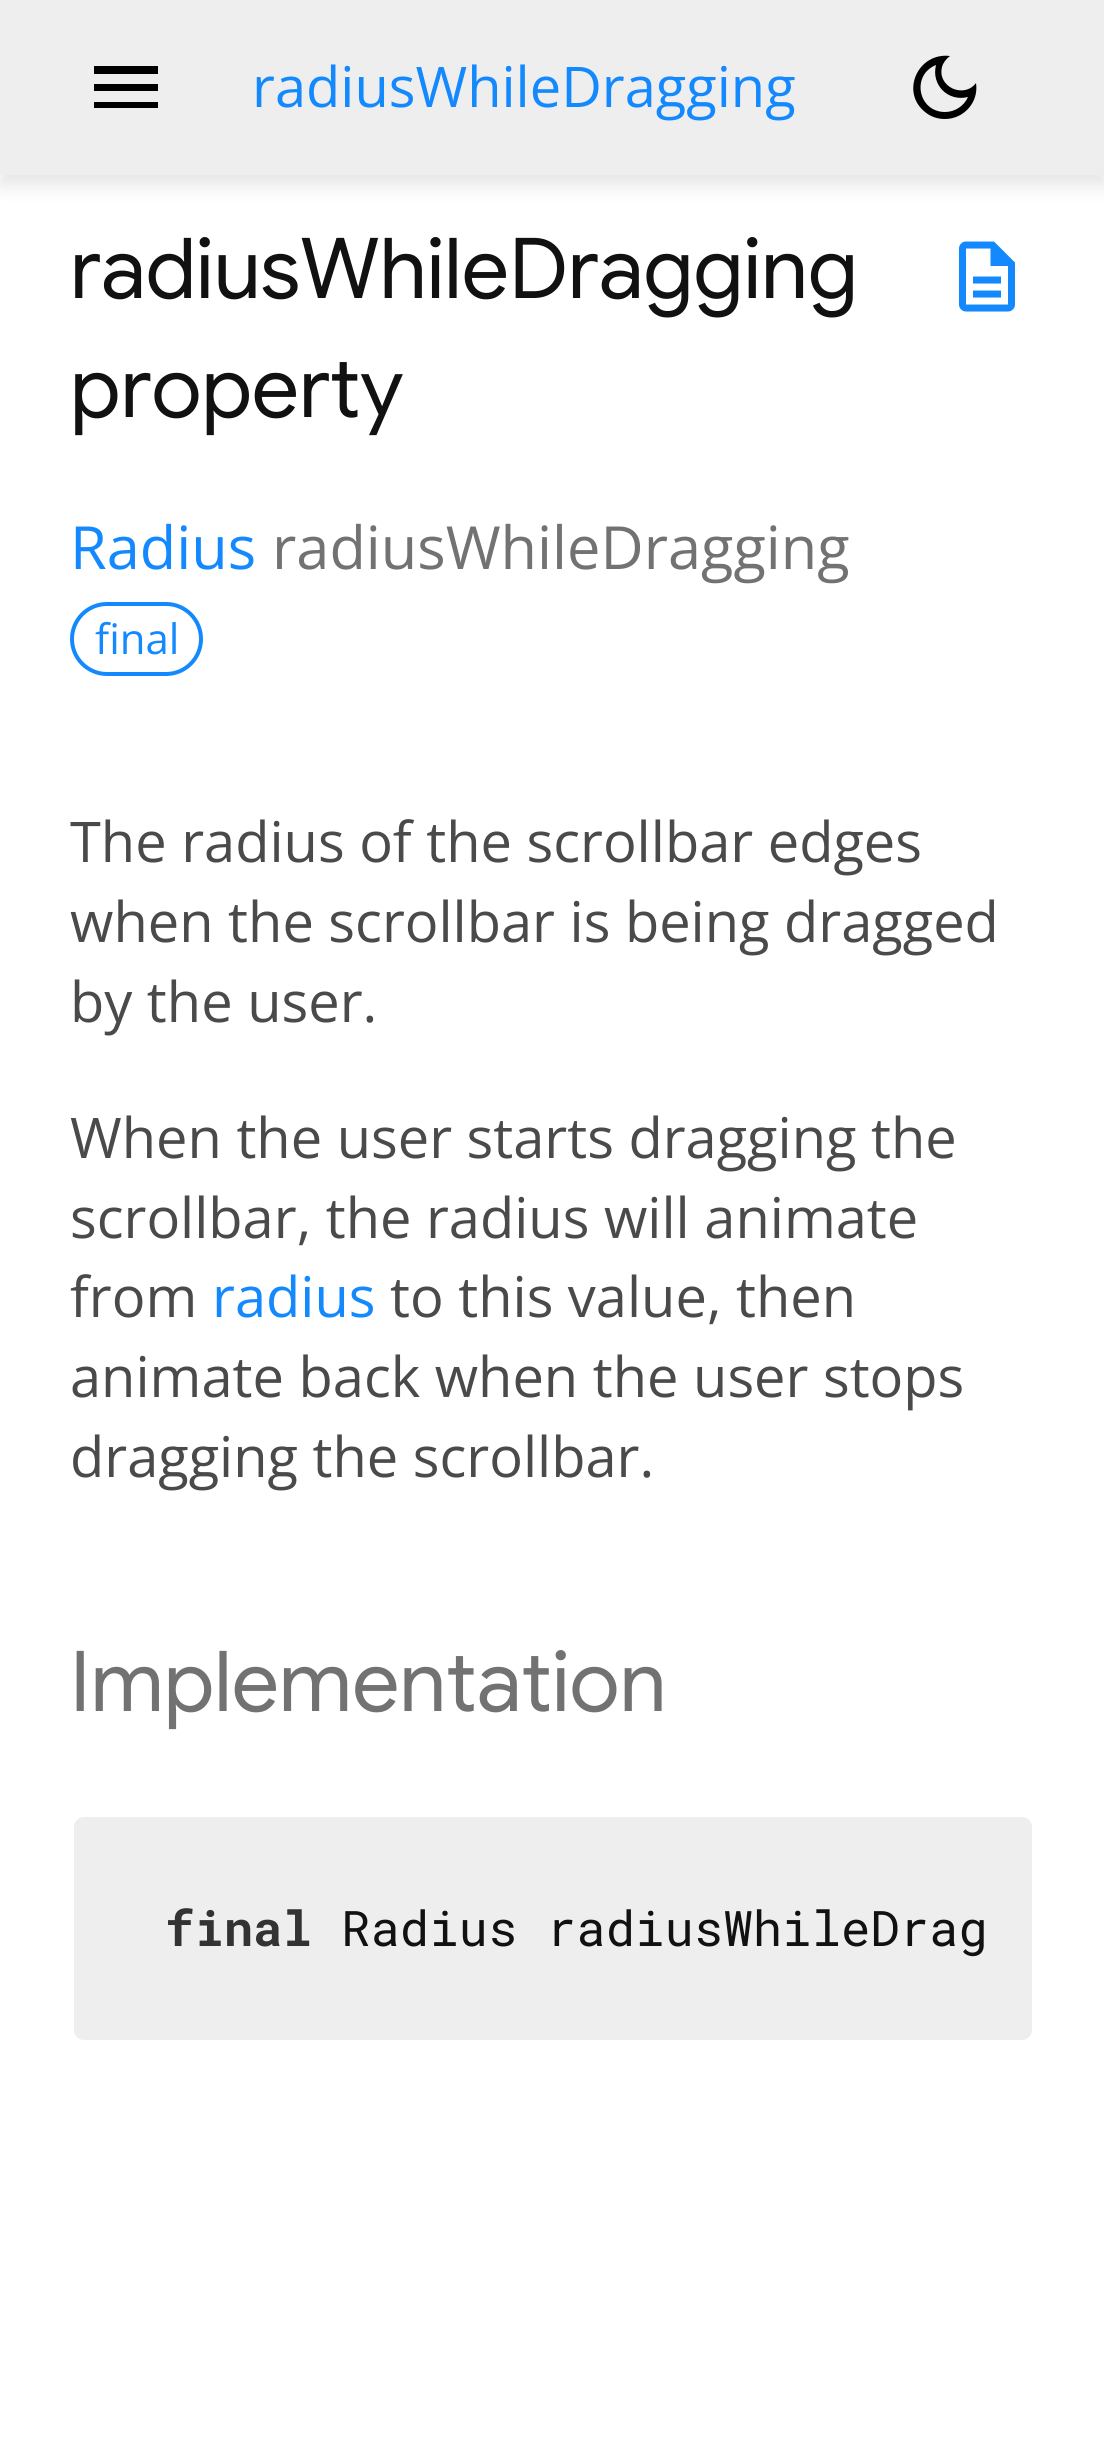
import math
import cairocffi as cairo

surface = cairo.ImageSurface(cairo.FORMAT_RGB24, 1104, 2444)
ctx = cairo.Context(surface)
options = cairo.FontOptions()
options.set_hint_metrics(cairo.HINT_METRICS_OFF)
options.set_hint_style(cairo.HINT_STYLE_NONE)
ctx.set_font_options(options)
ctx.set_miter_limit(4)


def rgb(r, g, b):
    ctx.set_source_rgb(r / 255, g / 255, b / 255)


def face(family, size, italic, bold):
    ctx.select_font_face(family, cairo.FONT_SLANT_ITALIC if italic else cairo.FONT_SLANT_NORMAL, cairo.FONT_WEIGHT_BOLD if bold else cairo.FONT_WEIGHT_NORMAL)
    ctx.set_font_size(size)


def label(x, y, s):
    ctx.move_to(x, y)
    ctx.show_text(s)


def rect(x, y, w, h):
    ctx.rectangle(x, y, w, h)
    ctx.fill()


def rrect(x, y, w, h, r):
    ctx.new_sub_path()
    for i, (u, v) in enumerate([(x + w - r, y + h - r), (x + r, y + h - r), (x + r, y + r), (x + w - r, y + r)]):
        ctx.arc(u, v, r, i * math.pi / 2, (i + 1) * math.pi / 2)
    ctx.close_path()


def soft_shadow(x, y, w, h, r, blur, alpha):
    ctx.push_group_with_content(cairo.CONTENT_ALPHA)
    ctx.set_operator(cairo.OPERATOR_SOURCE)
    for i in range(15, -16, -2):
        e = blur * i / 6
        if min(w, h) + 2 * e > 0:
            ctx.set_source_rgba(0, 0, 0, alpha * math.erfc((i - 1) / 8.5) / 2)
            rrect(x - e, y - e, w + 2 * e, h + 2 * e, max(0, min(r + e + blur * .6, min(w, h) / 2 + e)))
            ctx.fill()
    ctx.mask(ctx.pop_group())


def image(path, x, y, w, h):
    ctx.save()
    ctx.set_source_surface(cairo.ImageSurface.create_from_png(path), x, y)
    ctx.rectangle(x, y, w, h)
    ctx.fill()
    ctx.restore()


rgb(255, 255, 255)
ctx.paint()
rgb(0, 0, 0)
soft_shadow(0, 11, 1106, 175, 0, 9, 0.1)
rgb(238, 238, 238)
rect(0, 0, 1104, 175)
rgb(0, 0, 0)
ctx.new_path()
ctx.move_to(94, 108)
ctx.line_to(94, 102)
ctx.line_to(158, 102)
ctx.line_to(158, 108)
ctx.close_path()
ctx.move_to(94, 91)
ctx.line_to(94, 84)
ctx.line_to(158, 84)
ctx.line_to(158, 91)
ctx.close_path()
ctx.move_to(94, 74)
ctx.line_to(94, 66)
ctx.line_to(158, 66)
ctx.line_to(158, 74)
ctx.close_path()
ctx.fill()
face('Open Sans', 56, 0, 0)
rgb(19, 137, 253)
label(252, 107, 'radiusWhileDragging')
rgb(0, 0, 0)
ctx.new_path()
ctx.move_to(945, 119)
ctx.curve_to(938, 119, 931, 117, 925, 112)
ctx.curve_to(900, 92, 918, 52, 950, 56)
ctx.curve_to(946, 59, 943, 63, 942, 67)
ctx.curve_to(937, 87, 964, 99, 976, 83)
ctx.curve_to(979, 102, 964, 119, 945, 119)
ctx.close_path()
ctx.move_to(945, 112)
ctx.curve_to(955, 112, 964, 106, 968, 97)
ctx.curve_to(948, 102, 931, 85, 936, 65)
ctx.curve_to(911, 75, 918, 112, 945, 112)
ctx.close_path()
ctx.move_to(944, 88)
ctx.close_path()
ctx.fill()
face('Google Sans', 84, 0, 0)
rgb(17, 17, 17)
label(70, 298, 'radiusWhileDragging')
label(70, 417, 'property')
image('image0.png', 959, 241, 56, 71)
face('Open Sans', 59.5, 0, 0)
rgb(19, 137, 253)
label(70, 569, 'Radius')
rgb(114, 114, 114)
label(272, 569, 'radiusWhileDragging')
rrect(72, 604, 129, 70, 35)
rgb(19, 137, 253)
ctx.set_line_width(4)
ctx.stroke()
face('Open Sans', 42, 0, 0)
label(95, 654, 'final')
face('Open Sans', 56, 0, 0)
rgb(74, 74, 74)
label(70, 862, 'The radius of the scrollbar edges')
label(70, 942, 'when the scrollbar is being dragged')
label(70, 1022, 'by the user.')
label(70, 1158, 'When the user starts dragging the')
label(70, 1238, 'scrollbar, the radius will animate')
label(70, 1317, 'from')
rgb(19, 137, 253)
label(212, 1317, 'radius')
rgb(74, 74, 74)
label(390, 1317, 'to this value, then')
label(70, 1397, 'animate back when the user stops')
label(70, 1477, 'dragging the scrollbar.')
face('Google Sans', 84, 0, 0)
rgb(114, 114, 114)
label(70, 1711, 'Implementation')
rgb(238, 238, 238)
rrect(72, 1815, 962, 227, 12)
ctx.fill_preserve()
rgb(255, 255, 255)
ctx.stroke()
face('Roboto Mono', 49, 0, 1)
rgb(51, 51, 51)
label(165, 1946, 'final')
face('Roboto Mono', 49, 0, 0)
rgb(17, 17, 17)
label(341, 1946, 'Radius radiusWhileDrag')
surface.write_to_png('render.png')
